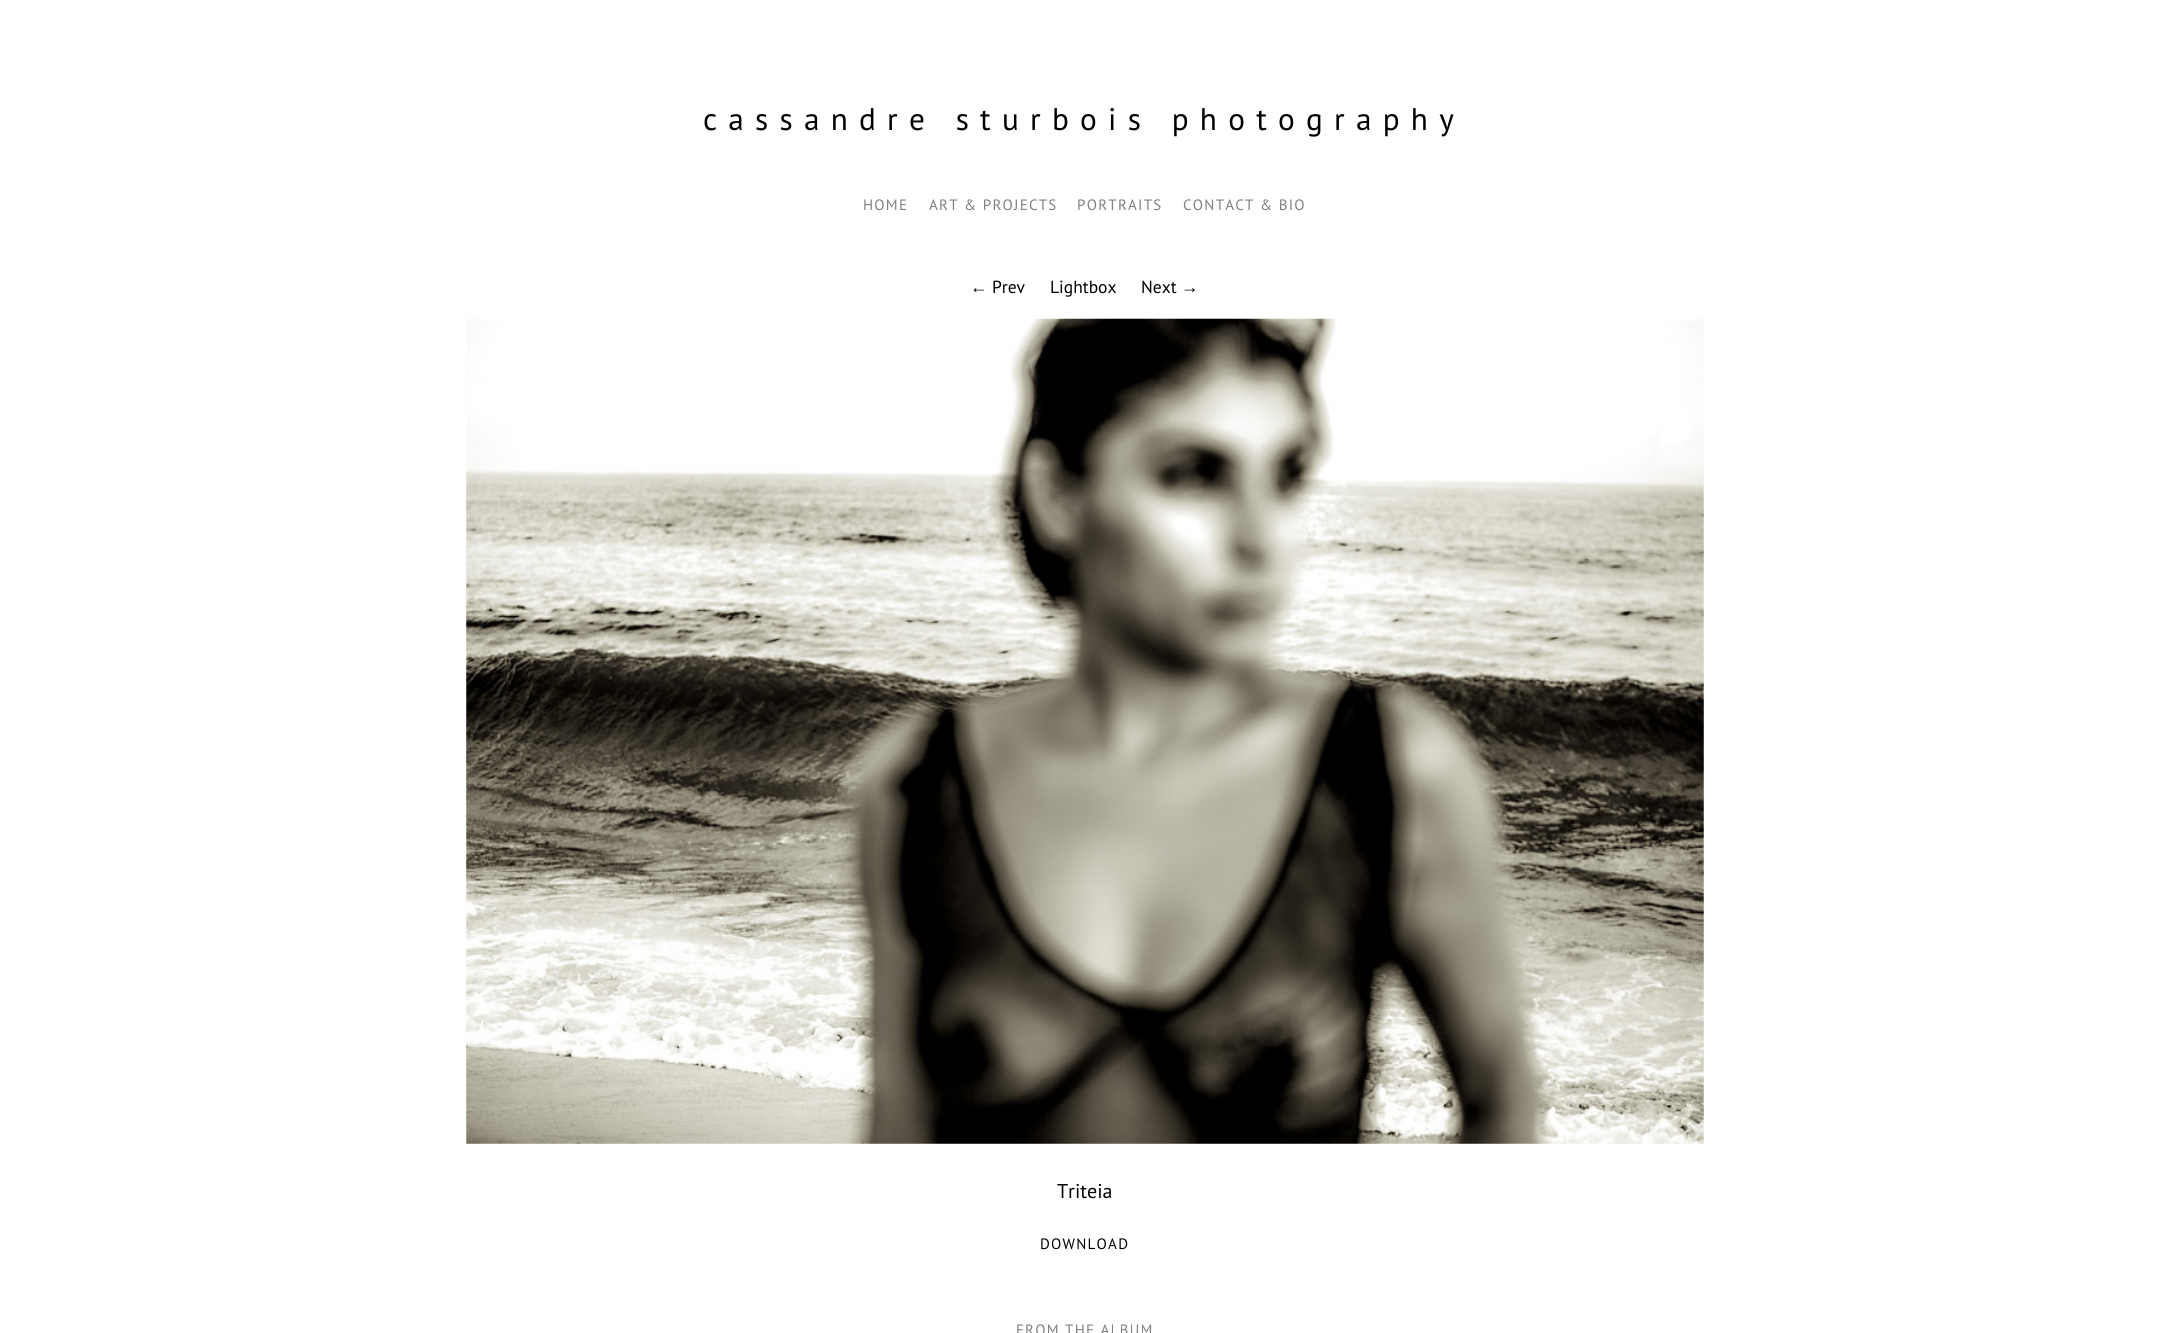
import math
import cairocffi as cairo

surface = cairo.ImageSurface(cairo.FORMAT_RGB24, 2168, 1333)
ctx = cairo.Context(surface)
options = cairo.FontOptions()
options.set_hint_metrics(cairo.HINT_METRICS_OFF)
options.set_hint_style(cairo.HINT_STYLE_NONE)
ctx.set_font_options(options)
ctx.set_miter_limit(4)


def rgb(r, g, b):
    ctx.set_source_rgb(r / 255, g / 255, b / 255)


def face(family, size, italic, bold):
    ctx.select_font_face(family, cairo.FONT_SLANT_ITALIC if italic else cairo.FONT_SLANT_NORMAL, cairo.FONT_WEIGHT_BOLD if bold else cairo.FONT_WEIGHT_NORMAL)
    ctx.set_font_size(size)


def label(x, y, s):
    ctx.move_to(x, y)
    ctx.show_text(s)


def tracked(x, y, s, letter, word):
    ctx.move_to(x, y)
    for ch in s:
        ctx.show_text(ch)
        ctx.rel_move_to(letter + word * (ch == ' '), 0)


def image(path, x, y, w, h):
    ctx.save()
    ctx.set_source_surface(cairo.ImageSurface.create_from_png(path), x, y)
    ctx.rectangle(x, y, w, h)
    ctx.fill()
    ctx.restore()


rgb(255, 255, 255)
ctx.paint()
face('PT Sans', 31.25, 0, 0)
rgb(0, 0, 0)
tracked(703, 130, 'cassandre sturbois photography', 11.25, 0)
face('PT Sans', 15, 0, 0)
rgb(128, 128, 128)
tracked(863, 210, 'HOME', 1.25, 0)
tracked(929, 210, 'ART & PROJECTS', 1.25, 0)
tracked(1077, 210, 'PORTRAITS', 1.25, 0)
tracked(1183, 210, 'CONTACT & BIO', 1.25, 0)
face('Liberation Sans', 17.5, 0, 0)
rgb(0, 0, 0)
label(970, 293, '←')
face('PT Sans', 17.5, 0, 0)
label(992, 293, 'Prev')
label(1050, 293, 'Lightbox')
label(1141, 293, 'Next')
face('Liberation Sans', 17.5, 0, 0)
label(1181, 293, '→')
image('image0.png', 466, 318, 1238, 826)
face('PT Sans', 20, 0, 0)
label(1057, 1198, 'Triteia')
face('PT Sans', 15, 0, 0)
tracked(1040, 1249, 'DOWNLOAD', 1.25, 0)
rgb(128, 128, 128)
tracked(1016, 1335, 'FROM THE ALBUM', 1.25, 0)
surface.write_to_png('render.png')
